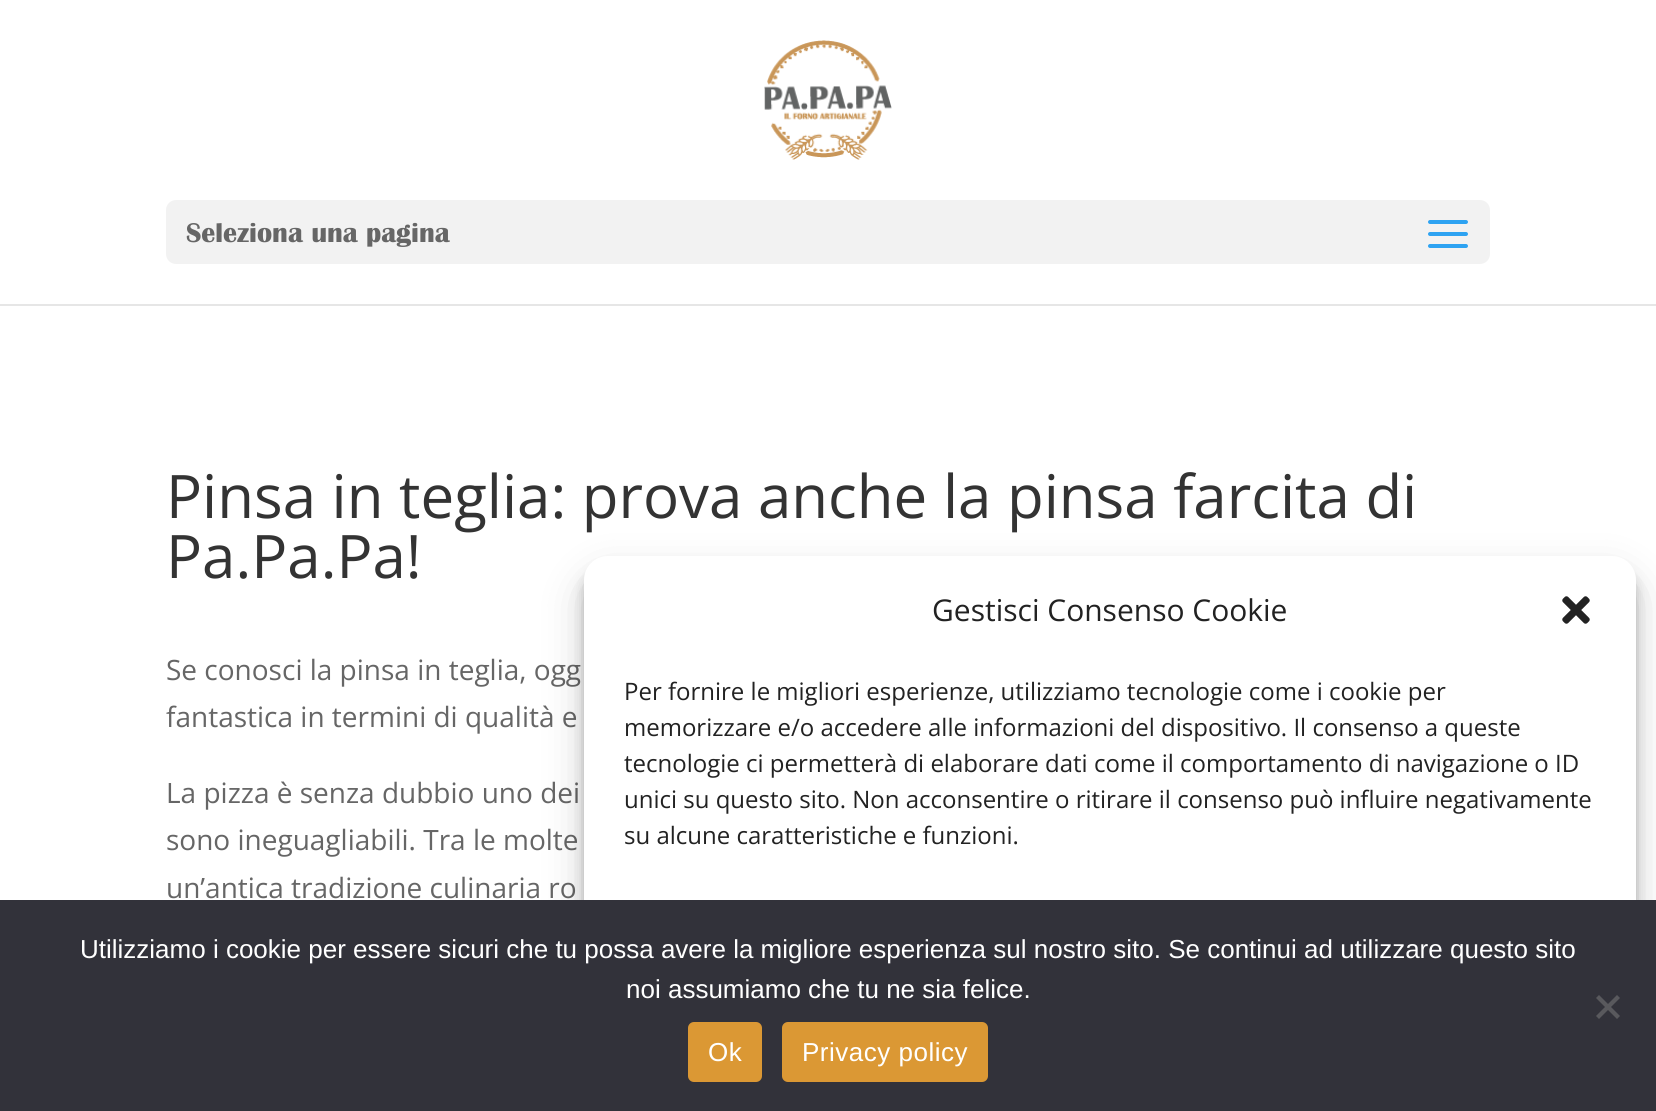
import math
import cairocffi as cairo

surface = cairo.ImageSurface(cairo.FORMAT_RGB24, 1656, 1111)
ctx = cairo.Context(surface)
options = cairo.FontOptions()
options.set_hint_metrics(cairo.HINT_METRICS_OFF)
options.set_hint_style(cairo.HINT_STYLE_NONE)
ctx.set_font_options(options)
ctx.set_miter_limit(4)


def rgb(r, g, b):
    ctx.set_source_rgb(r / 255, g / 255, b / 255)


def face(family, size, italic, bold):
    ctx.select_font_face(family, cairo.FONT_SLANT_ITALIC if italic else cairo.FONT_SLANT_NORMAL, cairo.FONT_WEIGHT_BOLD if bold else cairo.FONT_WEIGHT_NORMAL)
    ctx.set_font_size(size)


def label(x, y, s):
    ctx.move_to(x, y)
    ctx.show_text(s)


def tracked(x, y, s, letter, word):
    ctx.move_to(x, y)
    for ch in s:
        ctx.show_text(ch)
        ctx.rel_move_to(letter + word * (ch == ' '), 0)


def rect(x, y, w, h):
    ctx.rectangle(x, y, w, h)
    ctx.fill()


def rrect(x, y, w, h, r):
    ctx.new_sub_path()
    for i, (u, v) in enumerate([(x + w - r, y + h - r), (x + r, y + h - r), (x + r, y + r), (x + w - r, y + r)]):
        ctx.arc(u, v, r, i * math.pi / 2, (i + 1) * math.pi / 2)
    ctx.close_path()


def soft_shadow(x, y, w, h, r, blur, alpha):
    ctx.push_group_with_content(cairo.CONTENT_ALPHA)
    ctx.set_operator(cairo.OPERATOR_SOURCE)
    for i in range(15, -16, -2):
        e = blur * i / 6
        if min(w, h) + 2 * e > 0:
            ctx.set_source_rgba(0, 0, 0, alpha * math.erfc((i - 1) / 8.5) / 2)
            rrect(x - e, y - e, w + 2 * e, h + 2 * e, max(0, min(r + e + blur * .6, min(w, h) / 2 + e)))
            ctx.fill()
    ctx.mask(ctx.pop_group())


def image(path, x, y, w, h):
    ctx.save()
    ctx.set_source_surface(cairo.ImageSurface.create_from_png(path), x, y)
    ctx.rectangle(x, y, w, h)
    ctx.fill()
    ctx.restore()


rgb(255, 255, 255)
ctx.paint()
rgb(230, 230, 230)
rect(0, 304, 1656, 2)
image('image0.png', 764, 40, 128, 120)
rgb(242, 242, 242)
rrect(166, 200, 1324, 64, 10)
ctx.fill()
face('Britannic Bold', 28, 0, 1)
rgb(102, 102, 102)
label(186, 242, 'Seleziona una pagina')
image('image1.png', 1428, 220, 40, 28)
face('Open Sans', 60, 0, 0)
rgb(51, 51, 51)
label(166, 518, 'Pinsa in teglia: prova anche la pinsa farcita di')
label(166, 578, 'Pa.Pa.Pa!')
face('Open Sans', 28, 0, 0)
rgb(102, 102, 102)
label(166, 680, 'Se conosci la pinsa in teglia, ogg')
label(166, 727, 'fantastica in termini di qualità e')
label(166, 803, 'La pizza è senza dubbio uno dei')
label(166, 850, 'sono ineguagliabili. Tra le molte')
label(166, 898, 'un’antica tradizione culinaria ro')
rgb(0, 0, 0)
soft_shadow(584, 568, 1052, 536, 24, 6, 0.23)
soft_shadow(584, 576, 1052, 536, 24, 20, 0.19)
rgb(255, 255, 255)
rrect(584, 556, 1052, 536, 24)
ctx.fill()
face('Open Sans', 30, 0, 0)
rgb(34, 34, 34)
label(932, 621, 'Gestisci Consenso Cookie')
image('image2.png', 1562, 596, 28, 28)
face('Open Sans', 24, 0, 0)
label(624, 700, 'Per fornire le migliori esperienze, utilizziamo tecnologie come i cookie per')
label(624, 736, 'memorizzare e/o accedere alle informazioni del dispositivo. Il consenso a queste')
label(624, 772, 'tecnologie ci permetterà di elaborare dati come il comportamento di navigazione o ID')
label(624, 808, 'unici su questo sito. Non acconsentire o ritirare il consenso può influire negativamente')
label(624, 844, 'su alcune caratteristiche e funzioni.')
rgb(50, 50, 58)
rect(0, 900, 1656, 211)
face('Liberation Sans', 26, 0, 0)
rgb(255, 255, 255)
label(80, 958, 'Utilizziamo i cookie per essere sicuri che tu possa avere la migliore esperienza sul nostro sito. Se continui ad utilizzare questo sito')
label(626, 998, 'noi assumiamo che tu ne sia felice.')
rgb(89, 89, 93)
ctx.new_path()
ctx.move_to(1617, 995)
ctx.line_to(1620, 998)
ctx.line_to(1599, 1019)
ctx.line_to(1596, 1016)
ctx.close_path()
ctx.fill()
ctx.new_path()
ctx.move_to(1596, 998)
ctx.line_to(1599, 995)
ctx.line_to(1620, 1016)
ctx.line_to(1617, 1019)
ctx.close_path()
ctx.fill()
rgb(219, 152, 52)
rrect(688, 1022, 74, 60, 6)
ctx.fill()
rgb(255, 255, 255)
tracked(708, 1061, 'Ok', 0.5, 0)
rgb(219, 152, 52)
rrect(782, 1022, 206, 60, 6)
ctx.fill()
rgb(255, 255, 255)
tracked(802, 1061, 'Privacy policy', 0.5, 0)
surface.write_to_png('render.png')
